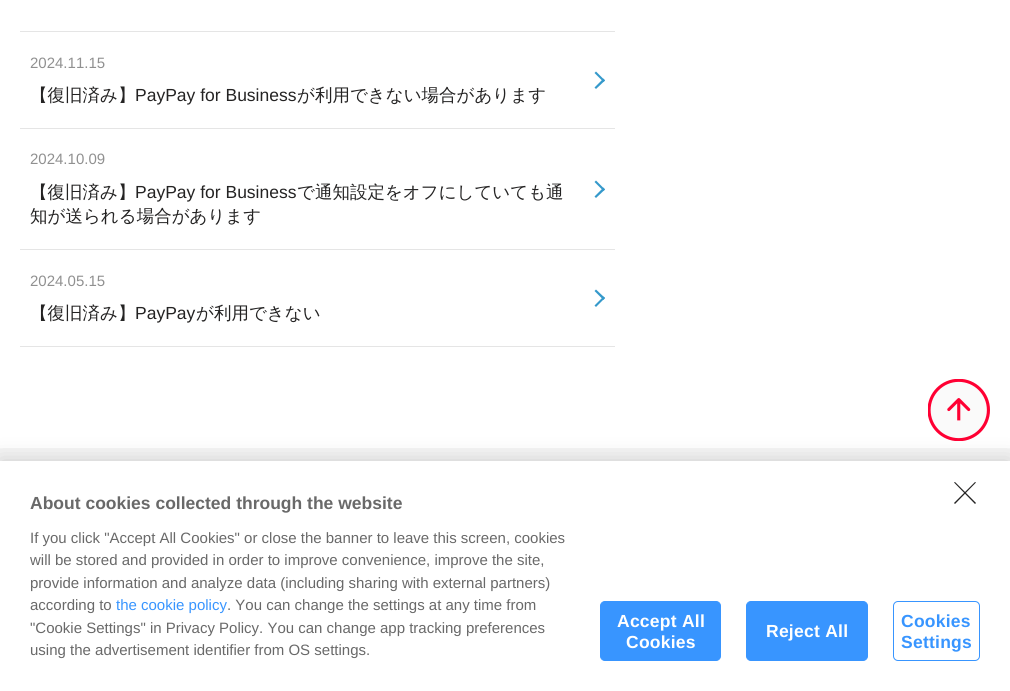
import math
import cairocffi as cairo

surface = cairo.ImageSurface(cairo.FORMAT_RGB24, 1010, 691)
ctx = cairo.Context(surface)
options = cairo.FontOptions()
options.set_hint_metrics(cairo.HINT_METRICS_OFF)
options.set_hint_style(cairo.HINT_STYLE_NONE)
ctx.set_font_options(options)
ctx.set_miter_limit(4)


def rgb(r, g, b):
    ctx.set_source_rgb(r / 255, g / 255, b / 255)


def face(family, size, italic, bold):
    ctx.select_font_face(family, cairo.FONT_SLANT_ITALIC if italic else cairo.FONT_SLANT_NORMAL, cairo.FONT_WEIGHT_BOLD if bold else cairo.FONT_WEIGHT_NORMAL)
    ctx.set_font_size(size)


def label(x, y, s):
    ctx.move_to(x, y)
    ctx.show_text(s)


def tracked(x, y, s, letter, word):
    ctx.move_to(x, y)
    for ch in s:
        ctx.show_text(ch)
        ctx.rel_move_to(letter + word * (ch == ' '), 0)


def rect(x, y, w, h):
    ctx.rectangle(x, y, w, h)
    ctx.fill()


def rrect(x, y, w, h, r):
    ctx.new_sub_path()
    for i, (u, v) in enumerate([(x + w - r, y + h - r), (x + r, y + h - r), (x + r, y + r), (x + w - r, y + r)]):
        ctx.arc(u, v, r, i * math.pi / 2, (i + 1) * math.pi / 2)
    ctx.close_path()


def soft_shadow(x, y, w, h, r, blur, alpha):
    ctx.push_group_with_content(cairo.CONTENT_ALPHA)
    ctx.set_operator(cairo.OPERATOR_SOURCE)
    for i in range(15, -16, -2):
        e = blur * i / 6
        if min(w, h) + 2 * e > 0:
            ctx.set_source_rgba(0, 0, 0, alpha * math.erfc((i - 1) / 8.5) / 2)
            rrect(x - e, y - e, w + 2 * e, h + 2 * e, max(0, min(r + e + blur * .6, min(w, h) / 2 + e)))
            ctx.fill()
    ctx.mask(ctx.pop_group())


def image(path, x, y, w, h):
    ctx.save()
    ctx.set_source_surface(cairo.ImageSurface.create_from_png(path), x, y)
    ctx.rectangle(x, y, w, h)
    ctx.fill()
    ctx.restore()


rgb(255, 255, 255)
ctx.paint()
rgb(229, 229, 229)
rect(20, 31, 595, 1)
rect(20, 128, 595, 1)
face('Liberation Sans', 15, 0, 0)
rgb(144, 144, 144)
label(30, 68, '2024.11.15')
rgb(53, 153, 203)
ctx.new_path()
ctx.move_to(596, 71.5)
ctx.line_to(605, 80.5)
ctx.line_to(603.5, 82)
ctx.line_to(594.5, 73)
ctx.close_path()
ctx.fill()
ctx.new_path()
ctx.move_to(603.5, 78.5)
ctx.line_to(605, 80.5)
ctx.line_to(596, 89)
ctx.line_to(594.5, 87.5)
ctx.close_path()
ctx.fill()
face('WenQuanYi Zen Hei Medium', 17.5, 0, 0)
rgb(36, 35, 35)
label(30, 101, '【復旧済み】')
face('Liberation Sans', 17.5, 0, 0)
label(135, 101, 'PayPay for Business')
face('WenQuanYi Zen Hei Medium', 17.5, 0, 0)
label(297, 101, 'が利用できない場合があります')
rgb(229, 229, 229)
rect(20, 249, 595, 1)
face('Liberation Sans', 15, 0, 0)
rgb(144, 144, 144)
label(30, 164, '2024.10.09')
face('WenQuanYi Zen Hei Medium', 17.5, 0, 0)
rgb(36, 35, 35)
label(30, 198, '【復旧済み】')
face('Liberation Sans', 17.5, 0, 0)
label(135, 198, 'PayPay for Business')
face('WenQuanYi Zen Hei Medium', 17.5, 0, 0)
label(297, 198, 'で通知設定をオフにしていても通')
label(30, 222, '知が送られる場合があります')
rgb(53, 153, 203)
ctx.new_path()
ctx.move_to(596, 180.5)
ctx.line_to(605, 189.5)
ctx.line_to(603.5, 191)
ctx.line_to(594.5, 182)
ctx.close_path()
ctx.fill()
ctx.new_path()
ctx.move_to(603.5, 187.5)
ctx.line_to(605, 189.5)
ctx.line_to(596, 198)
ctx.line_to(594.5, 196.5)
ctx.close_path()
ctx.fill()
rgb(229, 229, 229)
rect(20, 346, 595, 1)
face('Liberation Sans', 15, 0, 0)
rgb(144, 144, 144)
label(30, 286, '2024.05.15')
rgb(53, 153, 203)
ctx.new_path()
ctx.move_to(596, 289.5)
ctx.line_to(605, 298)
ctx.line_to(603.5, 300)
ctx.line_to(594.5, 291)
ctx.close_path()
ctx.fill()
ctx.new_path()
ctx.move_to(603.5, 296.5)
ctx.line_to(605, 298)
ctx.line_to(596, 307)
ctx.line_to(594.5, 305.5)
ctx.close_path()
ctx.fill()
face('WenQuanYi Zen Hei Medium', 17.5, 0, 0)
rgb(36, 35, 35)
label(30, 319, '【復旧済み】')
face('Liberation Sans', 17.5, 0, 0)
label(135, 319, 'PayPay')
face('WenQuanYi Zen Hei Medium', 17.5, 0, 0)
label(196, 319, 'が利用できない')
rgb(250, 250, 250)
ctx.new_path()
ctx.arc(959, 410, 31, 0, 2 * math.pi)
ctx.fill()
image('image0.png', 928, 379, 62, 62)
rgb(247, 247, 247)
rect(0, 448, 1010, 13)
rgb(0, 0, 0)
soft_shadow(0, 461, 1010, 230, 0, 11, 0.2)
rgb(255, 255, 255)
rect(0, 461, 1010, 230)
rgb(36, 35, 35)
ctx.new_path()
ctx.move_to(954, 503)
ctx.line_to(975, 482)
ctx.line_to(976, 482.5)
ctx.line_to(955, 504)
ctx.close_path()
ctx.fill()
ctx.new_path()
ctx.move_to(955, 482)
ctx.line_to(976, 503)
ctx.line_to(975, 504)
ctx.line_to(954, 482.5)
ctx.close_path()
ctx.fill()
face('Liberation Sans', 17.5, 0, 1)
rgb(105, 105, 105)
label(30, 509, 'About cookies collected through the website')
face('Liberation Sans', 15, 0, 0)
label(30, 543, 'If you click "Accept All Cookies" or close the banner to leave this screen, cookies')
label(30, 565, 'will be stored and provided in order to improve convenience, improve the site,')
label(30, 588, 'provide information and analyze data (including sharing with external partners)')
label(30, 610, 'according to')
rgb(56, 149, 255)
label(116, 610, 'the cookie policy')
rgb(105, 105, 105)
label(227, 610, '. You can change the settings at any time from')
label(30, 633, '"Cookie Settings" in Privacy Policy. You can change app tracking preferences')
label(30, 655, 'using the advertisement identifier from OS settings.')
rgb(56, 149, 255)
rrect(600.5, 601.5, 120, 59, 4.5)
ctx.fill_preserve()
ctx.set_line_width(1)
ctx.stroke()
face('Liberation Sans', 17.5, 0, 1)
rgb(255, 255, 255)
tracked(617, 627, 'Accept All', 0.25, 0)
tracked(626, 648, 'Cookies', 0.25, 0)
rgb(56, 149, 255)
rrect(746.5, 601.5, 121, 59, 4.5)
ctx.fill_preserve()
ctx.stroke()
rgb(255, 255, 255)
tracked(766, 637, 'Reject All', 0.25, 0)
rrect(893.5, 601.5, 86, 59, 4.5)
rgb(56, 149, 255)
ctx.stroke()
tracked(901, 627, 'Cookies', 0.25, 0)
tracked(901, 648, 'Settings', 0.25, 0)
surface.write_to_png('render.png')
